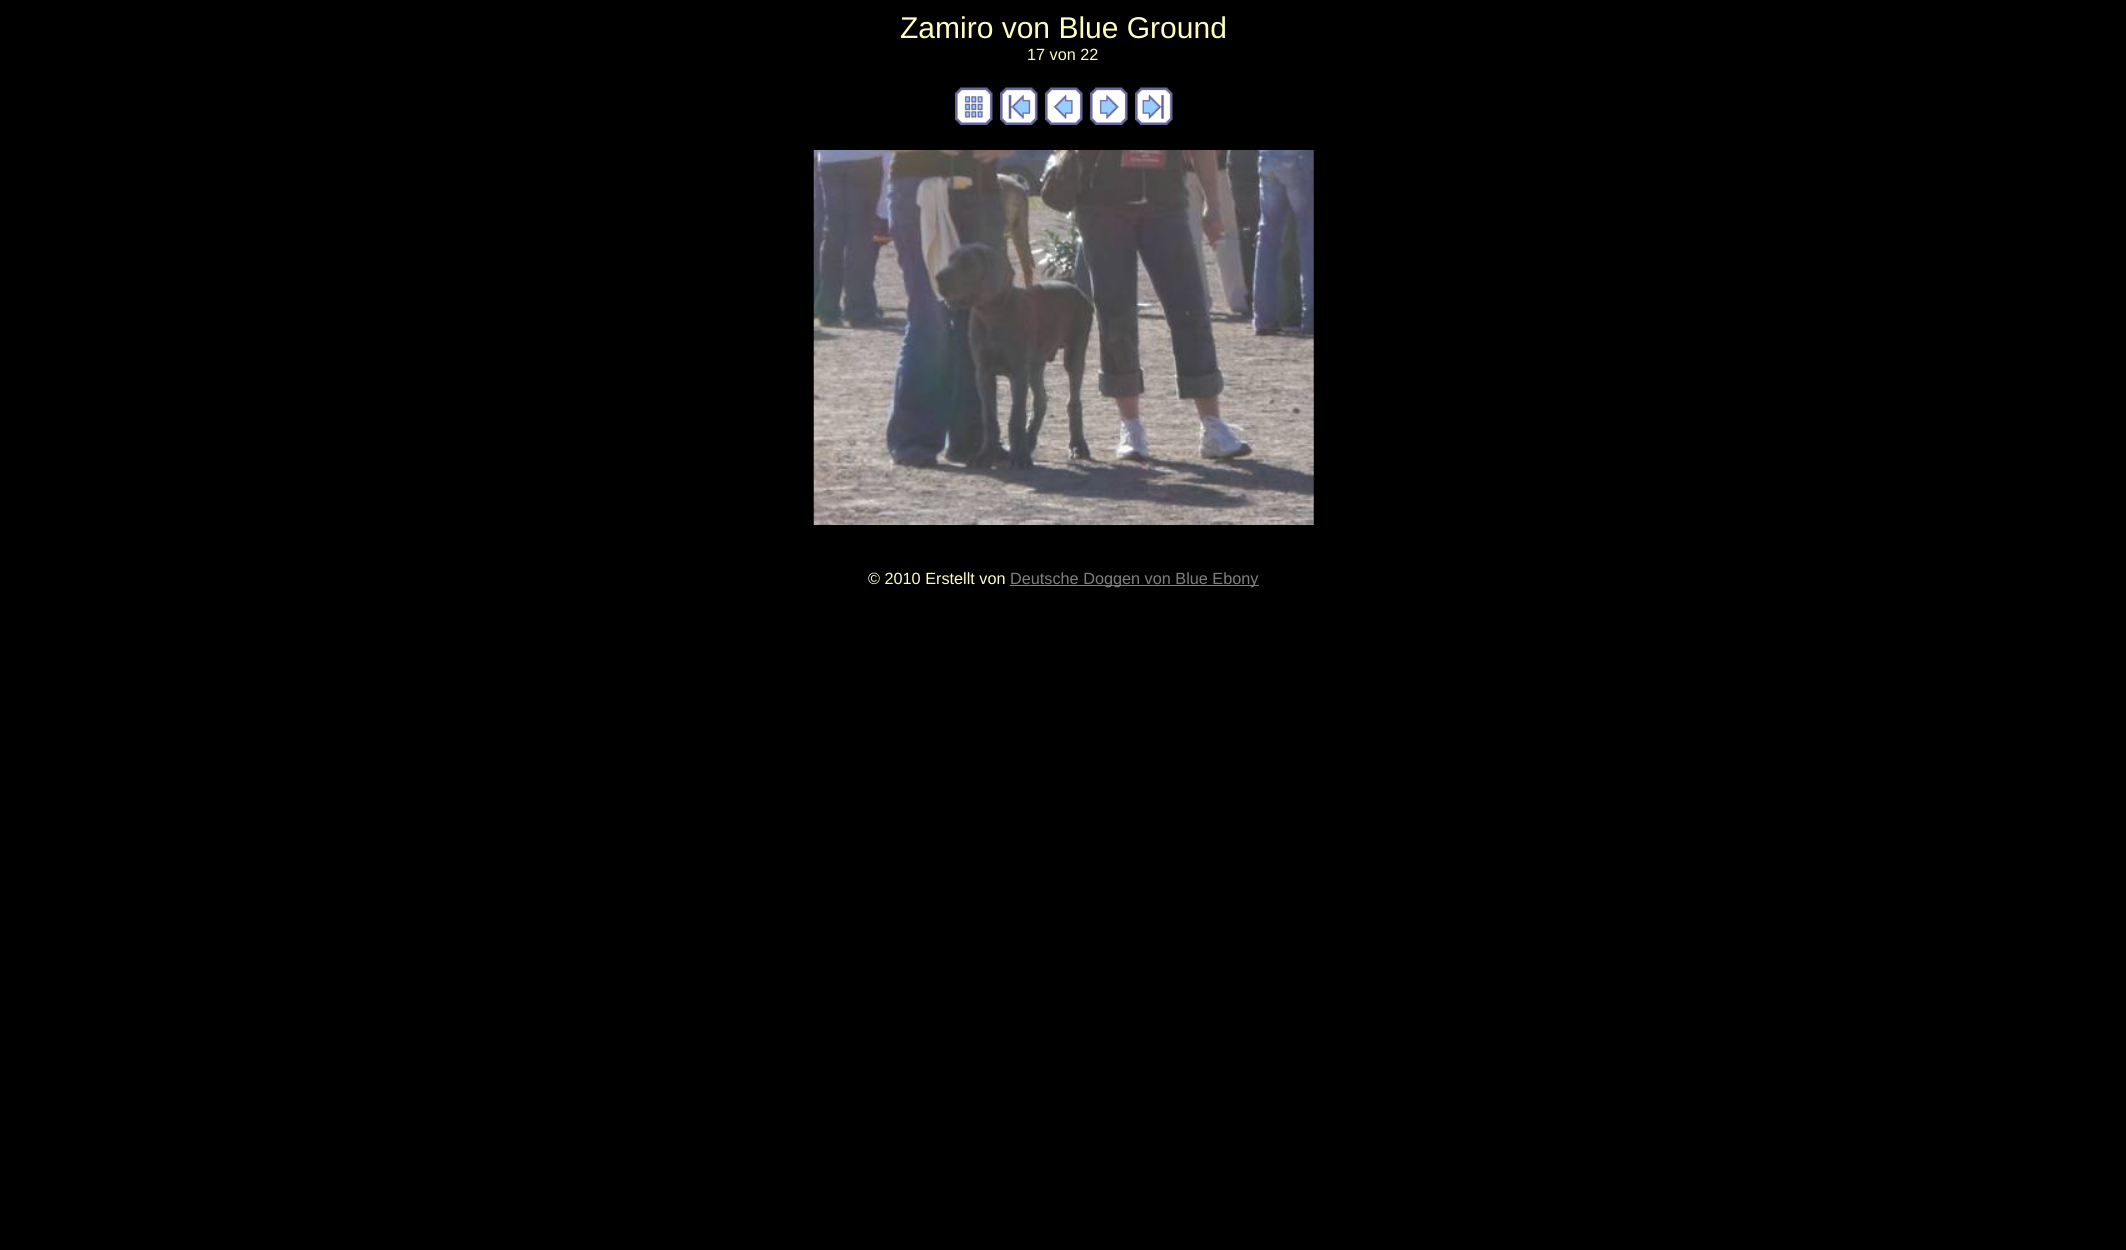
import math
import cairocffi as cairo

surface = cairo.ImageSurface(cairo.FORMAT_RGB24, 2126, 1250)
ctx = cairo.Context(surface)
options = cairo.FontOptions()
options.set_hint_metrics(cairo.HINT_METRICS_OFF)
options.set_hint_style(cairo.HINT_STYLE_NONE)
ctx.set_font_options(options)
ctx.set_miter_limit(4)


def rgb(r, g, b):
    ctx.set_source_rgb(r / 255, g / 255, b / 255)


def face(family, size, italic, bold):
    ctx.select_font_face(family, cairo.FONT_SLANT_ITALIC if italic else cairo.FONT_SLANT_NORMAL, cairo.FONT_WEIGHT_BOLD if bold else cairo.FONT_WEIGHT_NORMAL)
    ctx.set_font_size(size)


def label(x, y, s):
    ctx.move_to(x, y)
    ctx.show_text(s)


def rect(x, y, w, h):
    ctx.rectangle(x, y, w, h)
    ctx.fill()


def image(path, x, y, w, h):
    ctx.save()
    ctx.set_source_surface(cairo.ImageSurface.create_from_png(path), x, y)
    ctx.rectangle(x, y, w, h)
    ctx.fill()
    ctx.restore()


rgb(0, 0, 0)
ctx.paint()
face('Liberation Sans', 30, 0, 0)
rgb(255, 255, 192)
label(900, 38, 'Zamiro von Blue Ground')
face('Liberation Sans', 16.25, 0, 0)
label(1027, 60, '17 von 22')
image('image0.png', 955, 87, 38, 38)
image('image1.png', 1000, 87, 38, 38)
image('image2.png', 1045, 87, 38, 38)
image('image3.png', 1090, 87, 38, 38)
image('image4.png', 1135, 87, 38, 38)
image('image5.png', 813, 150, 501, 375)
label(868, 584, '© 2010 Erstellt von')
rgb(128, 128, 128)
rect(1010, 585, 249, 1)
label(1010, 584, 'Deutsche Doggen von Blue Ebony')
surface.write_to_png('render.png')
